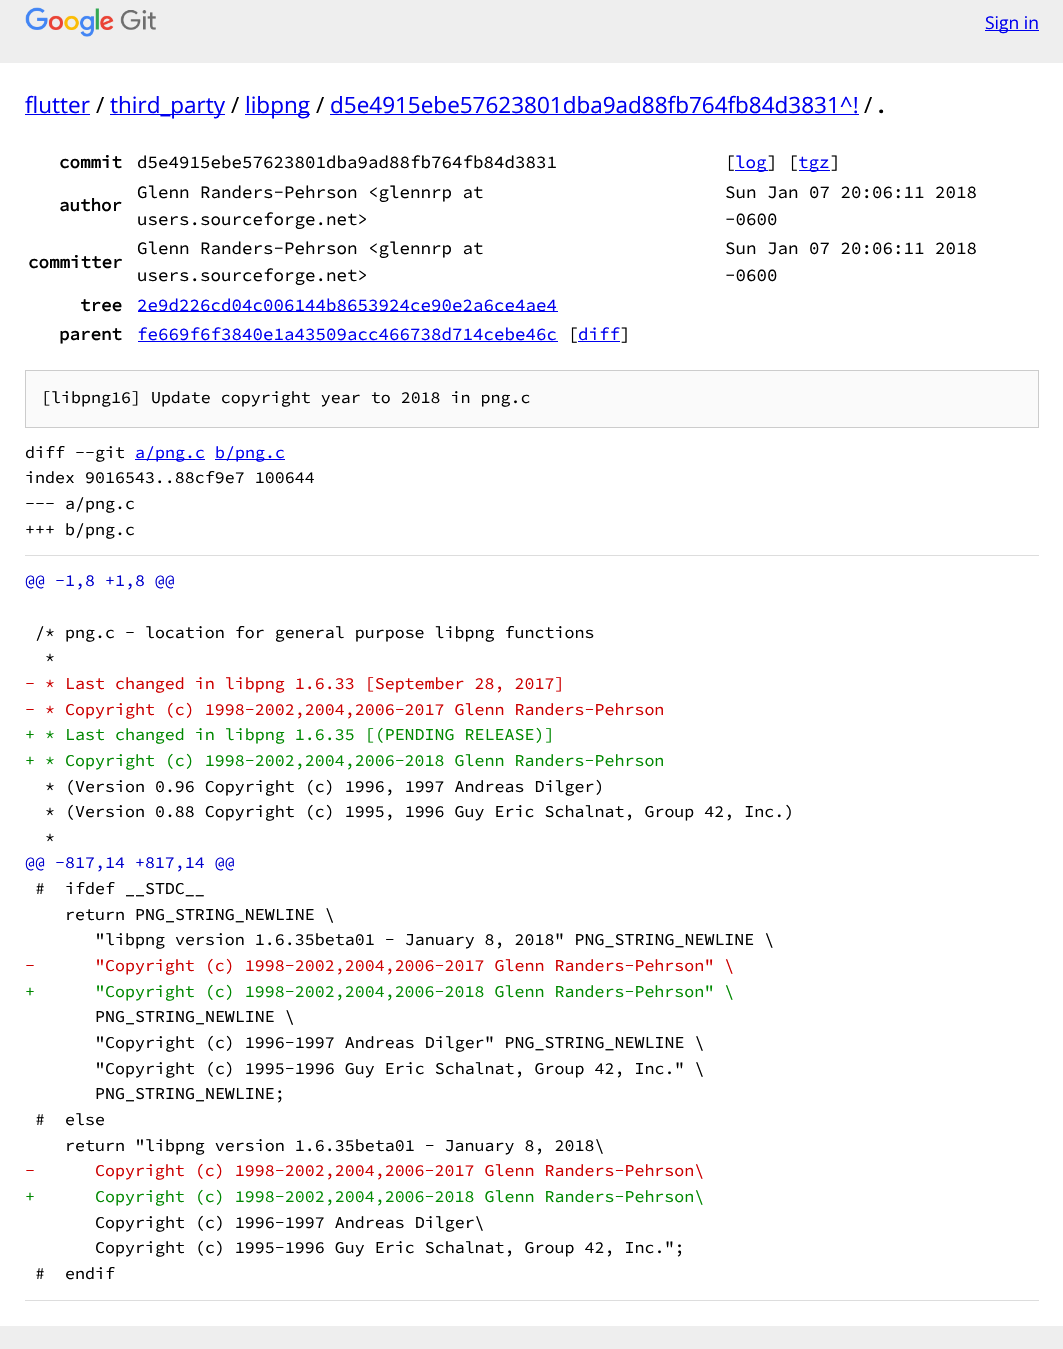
void draw(SkCanvas* canvas) {
	SkPaint paint;
	paint.setAntiAlias(true);
	canvas->clear(0xffffffff);
	paint.setColor(0xffeeeeee);
	canvas->drawRect(SkRect::MakeXYWH(0, 0, 1063, 63), paint);
	canvas->drawImageRect(SkImages::DeferredFromEncodedData(SkData::MakeFromFileName("img1.png")), SkRect::MakeXYWH(25, 7, 131, 30), SkSamplingOptions());
	paint.setColor(0xff0000ee);
	canvas->drawRect(SkRect::MakeXYWH(985, 30, 54, 1), paint);
	SkFont f1(fontMgr->matchFamilyStyle("Open Sans", SkFontStyle::Normal()), 17.5);
	f1.setSubpixel(true);
	canvas->drawString("Sign in", 985, 29, f1, paint);
	SkFont f2(fontMgr->matchFamilyStyle("Open Sans", SkFontStyle::Normal()), 22.5);
	f2.setSubpixel(true);
	canvas->drawString("flutter", 25, 113, f2, paint);
	canvas->drawRect(SkRect::MakeXYWH(25, 114, 65, 1), paint);
	paint.setColor(0xff000000);
	canvas->drawString("/", 96, 113, f2, paint);
	paint.setColor(0xff0000ee);
	canvas->drawRect(SkRect::MakeXYWH(110, 114, 115, 1), paint);
	canvas->drawString("third_party", 110, 113, f2, paint);
	paint.setColor(0xff000000);
	canvas->drawString("/", 231, 113, f2, paint);
	paint.setColor(0xff0000ee);
	canvas->drawRect(SkRect::MakeXYWH(245, 114, 65, 1), paint);
	canvas->drawString("libpng", 245, 113, f2, paint);
	paint.setColor(0xff000000);
	canvas->drawString("/", 316, 113, f2, paint);
	paint.setColor(0xff0000ee);
	canvas->drawString("d5e4915ebe57623801dba9ad88fb764fb84d3831^!", 330, 113, f2, paint);
	canvas->drawRect(SkRect::MakeXYWH(330, 114, 529, 1), paint);
	paint.setColor(0xff000000);
	canvas->drawString("/", 864, 113, f2, paint);
	SkFont f3(fontMgr->matchFamilyStyle("Open Sans", SkFontStyle::Bold()), 22.5);
	f3.setSubpixel(true);
	canvas->drawString(".", 878, 113, f3, paint);
	SkFont f4(fontMgr->matchFamilyStyle("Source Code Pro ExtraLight", SkFontStyle::Bold()), 17.5);
	f4.setSubpixel(true);
	canvas->drawString("commit", 59, 168, f4, paint);
	SkFont f5(fontMgr->matchFamilyStyle("Source Code Pro ExtraLight", SkFontStyle(200, SkFontStyle::kNormal_Width, SkFontStyle::kUpright_Slant)), 17.5);
	f5.setSubpixel(true);
	canvas->drawString("d5e4915ebe57623801dba9ad88fb764fb84d3831", 137, 168, f5, paint);
	canvas->drawString("[", 725, 168, f5, paint);
	paint.setColor(0xff0000ee);
	canvas->drawRect(SkRect::MakeXYWH(735, 170, 33, 1), paint);
	canvas->drawString("log", 735, 168, f5, paint);
	paint.setColor(0xff000000);
	canvas->drawString("] [", 767, 168, f5, paint);
	paint.setColor(0xff0000ee);
	canvas->drawRect(SkRect::MakeXYWH(799, 170, 31, 1), paint);
	canvas->drawString("tgz", 798, 168, f5, paint);
	paint.setColor(0xff000000);
	canvas->drawString("]", 830, 168, f5, paint);
	canvas->drawString("author", 59, 211, f4, paint);
	canvas->drawString("Glenn Randers-Pehrson <glennrp at", 137, 198, f5, paint);
	canvas->drawString("users.sourceforge.net>", 137, 225, f5, paint);
	canvas->drawString("Sun Jan 07 20:06:11 2018", 725, 198, f5, paint);
	canvas->drawString("-0600", 725, 225, f5, paint);
	canvas->drawString("committer", 28, 268, f4, paint);
	canvas->drawString("Glenn Randers-Pehrson <glennrp at", 137, 254, f5, paint);
	canvas->drawString("users.sourceforge.net>", 137, 281, f5, paint);
	canvas->drawString("Sun Jan 07 20:06:11 2018", 725, 254, f5, paint);
	canvas->drawString("-0600", 725, 281, f5, paint);
	canvas->drawString("tree", 80, 311, f4, paint);
	paint.setColor(0xff0000ee);
	canvas->drawRect(SkRect::MakeXYWH(138, 311, 420, 1), paint);
	canvas->drawString("2e9d226cd04c006144b8653924ce90e2a6ce4ae4", 137, 311, f5, paint);
	paint.setColor(0xff000000);
	canvas->drawString("parent", 59, 340, f4, paint);
	paint.setColor(0xff0000ee);
	canvas->drawString("fe669f6f3840e1a43509acc466738d714cebe46c", 137, 340, f5, paint);
	canvas->drawRect(SkRect::MakeXYWH(138, 341, 420, 1), paint);
	paint.setColor(0xff000000);
	canvas->drawString("[", 568, 340, f5, paint);
	paint.setColor(0xff0000ee);
	canvas->drawRect(SkRect::MakeXYWH(578, 341, 42, 1), paint);
	canvas->drawString("diff", 578, 340, f5, paint);
	paint.setColor(0xff000000);
	canvas->drawString("]", 620, 340, f5, paint);
	paint.setColor(0xfffafafa);
	canvas->drawRect(SkRect::MakeXYWH(25.5, 370.5, 1013, 57), paint);
	paint.setStroke(true);
	paint.setStrokeWidth(1);
	paint.setColor(0xffcccccc);
	canvas->drawRect(SkRect::MakeXYWH(25.5, 370.5, 1013, 57), paint);
	SkFont f6(fontMgr->matchFamilyStyle("Source Code Pro ExtraLight", SkFontStyle(200, SkFontStyle::kNormal_Width, SkFontStyle::kUpright_Slant)), 16.65);
	f6.setSubpixel(true);
	paint.setStroke(false);
	paint.setColor(0xff000000);
	canvas->drawString("[libpng16] Update copyright year to 2018 in png.c", 41, 403, f6, paint);
	canvas->drawString("diff --git", 25, 458, f6, paint);
	paint.setColor(0xff0000ee);
	canvas->drawRect(SkRect::MakeXYWH(135, 459, 70, 1), paint);
	canvas->drawString("a/png.c", 135, 458, f6, paint);
	canvas->drawRect(SkRect::MakeXYWH(215, 459, 70, 1), paint);
	canvas->drawString("b/png.c", 215, 458, f6, paint);
	paint.setColor(0xff000000);
	canvas->drawString("index 9016543..88cf9e7 100644", 25, 483, f6, paint);
	canvas->drawString("--- a/png.c", 25, 509, f6, paint);
	canvas->drawString("+++ b/png.c", 25, 535, f6, paint);
	paint.setColor(0xffdddddd);
	canvas->drawRect(SkRect::MakeXYWH(25, 555, 1014, 1), paint);
	canvas->drawRect(SkRect::MakeXYWH(25, 1300, 1014, 1), paint);
	paint.setColor(0xff0000cc);
	canvas->drawString("@@ -1,8 +1,8 @@", 25, 586, f6, paint);
	paint.setColor(0xff000000);
	canvas->drawString("/* png.c - location for general purpose libpng functions", 35, 638, f6, paint);
	canvas->drawString("*", 45, 663, f6, paint);
	paint.setColor(0xffcc0000);
	canvas->drawString("- * Last changed in libpng 1.6.33 [September 28, 2017]", 25, 689, f6, paint);
	canvas->drawString("- * Copyright (c) 1998-2002,2004,2006-2017 Glenn Randers-Pehrson", 25, 715, f6, paint);
	paint.setColor(0xff008800);
	canvas->drawString("+ * Last changed in libpng 1.6.35 [(PENDING RELEASE)]", 25, 740, f6, paint);
	canvas->drawString("+ * Copyright (c) 1998-2002,2004,2006-2018 Glenn Randers-Pehrson", 25, 766, f6, paint);
	paint.setColor(0xff000000);
	canvas->drawString("* (Version 0.96 Copyright (c) 1996, 1997 Andreas Dilger)", 45, 792, f6, paint);
	canvas->drawString("* (Version 0.88 Copyright (c) 1995, 1996 Guy Eric Schalnat, Group 42, Inc.)", 45, 817, f6, paint);
	canvas->drawString("*", 45, 843, f6, paint);
	paint.setColor(0xff0000cc);
	canvas->drawString("@@ -817,14 +817,14 @@", 25, 868, f6, paint);
	paint.setColor(0xff000000);
	canvas->drawString("#  ifdef __STDC__", 35, 894, f6, paint);
	canvas->drawString("return PNG_STRING_NEWLINE \\", 65, 920, f6, paint);
	canvas->drawString("\"libpng version 1.6.35beta01 - January 8, 2018\" PNG_STRING_NEWLINE \\", 95, 945, f6, paint);
	paint.setColor(0xffcc0000);
	canvas->drawString("-      \"Copyright (c) 1998-2002,2004,2006-2017 Glenn Randers-Pehrson\" \\", 25, 971, f6, paint);
	paint.setColor(0xff008800);
	canvas->drawString("+      \"Copyright (c) 1998-2002,2004,2006-2018 Glenn Randers-Pehrson\" \\", 25, 997, f6, paint);
	paint.setColor(0xff000000);
	canvas->drawString("PNG_STRING_NEWLINE \\", 95, 1022, f6, paint);
	canvas->drawString("\"Copyright (c) 1996-1997 Andreas Dilger\" PNG_STRING_NEWLINE \\", 95, 1048, f6, paint);
	canvas->drawString("\"Copyright (c) 1995-1996 Guy Eric Schalnat, Group 42, Inc.\" \\", 95, 1074, f6, paint);
	canvas->drawString("PNG_STRING_NEWLINE;", 95, 1099, f6, paint);
	canvas->drawString("#  else", 35, 1125, f6, paint);
	canvas->drawString("return \"libpng version 1.6.35beta01 - January 8, 2018\\", 65, 1151, f6, paint);
	paint.setColor(0xffcc0000);
	canvas->drawString("-      Copyright (c) 1998-2002,2004,2006-2017 Glenn Randers-Pehrson\\", 25, 1176, f6, paint);
	paint.setColor(0xff008800);
	canvas->drawString("+      Copyright (c) 1998-2002,2004,2006-2018 Glenn Randers-Pehrson\\", 25, 1202, f6, paint);
	paint.setColor(0xff000000);
	canvas->drawString("Copyright (c) 1996-1997 Andreas Dilger\\", 95, 1228, f6, paint);
	canvas->drawString("Copyright (c) 1995-1996 Guy Eric Schalnat, Group 42, Inc.\";", 95, 1253, f6, paint);
	canvas->drawString("#  endif", 35, 1279, f6, paint);
	paint.setColor(0xffeeeeee);
	canvas->drawRect(SkRect::MakeXYWH(0, 1326, 1063, 23), paint);
}
